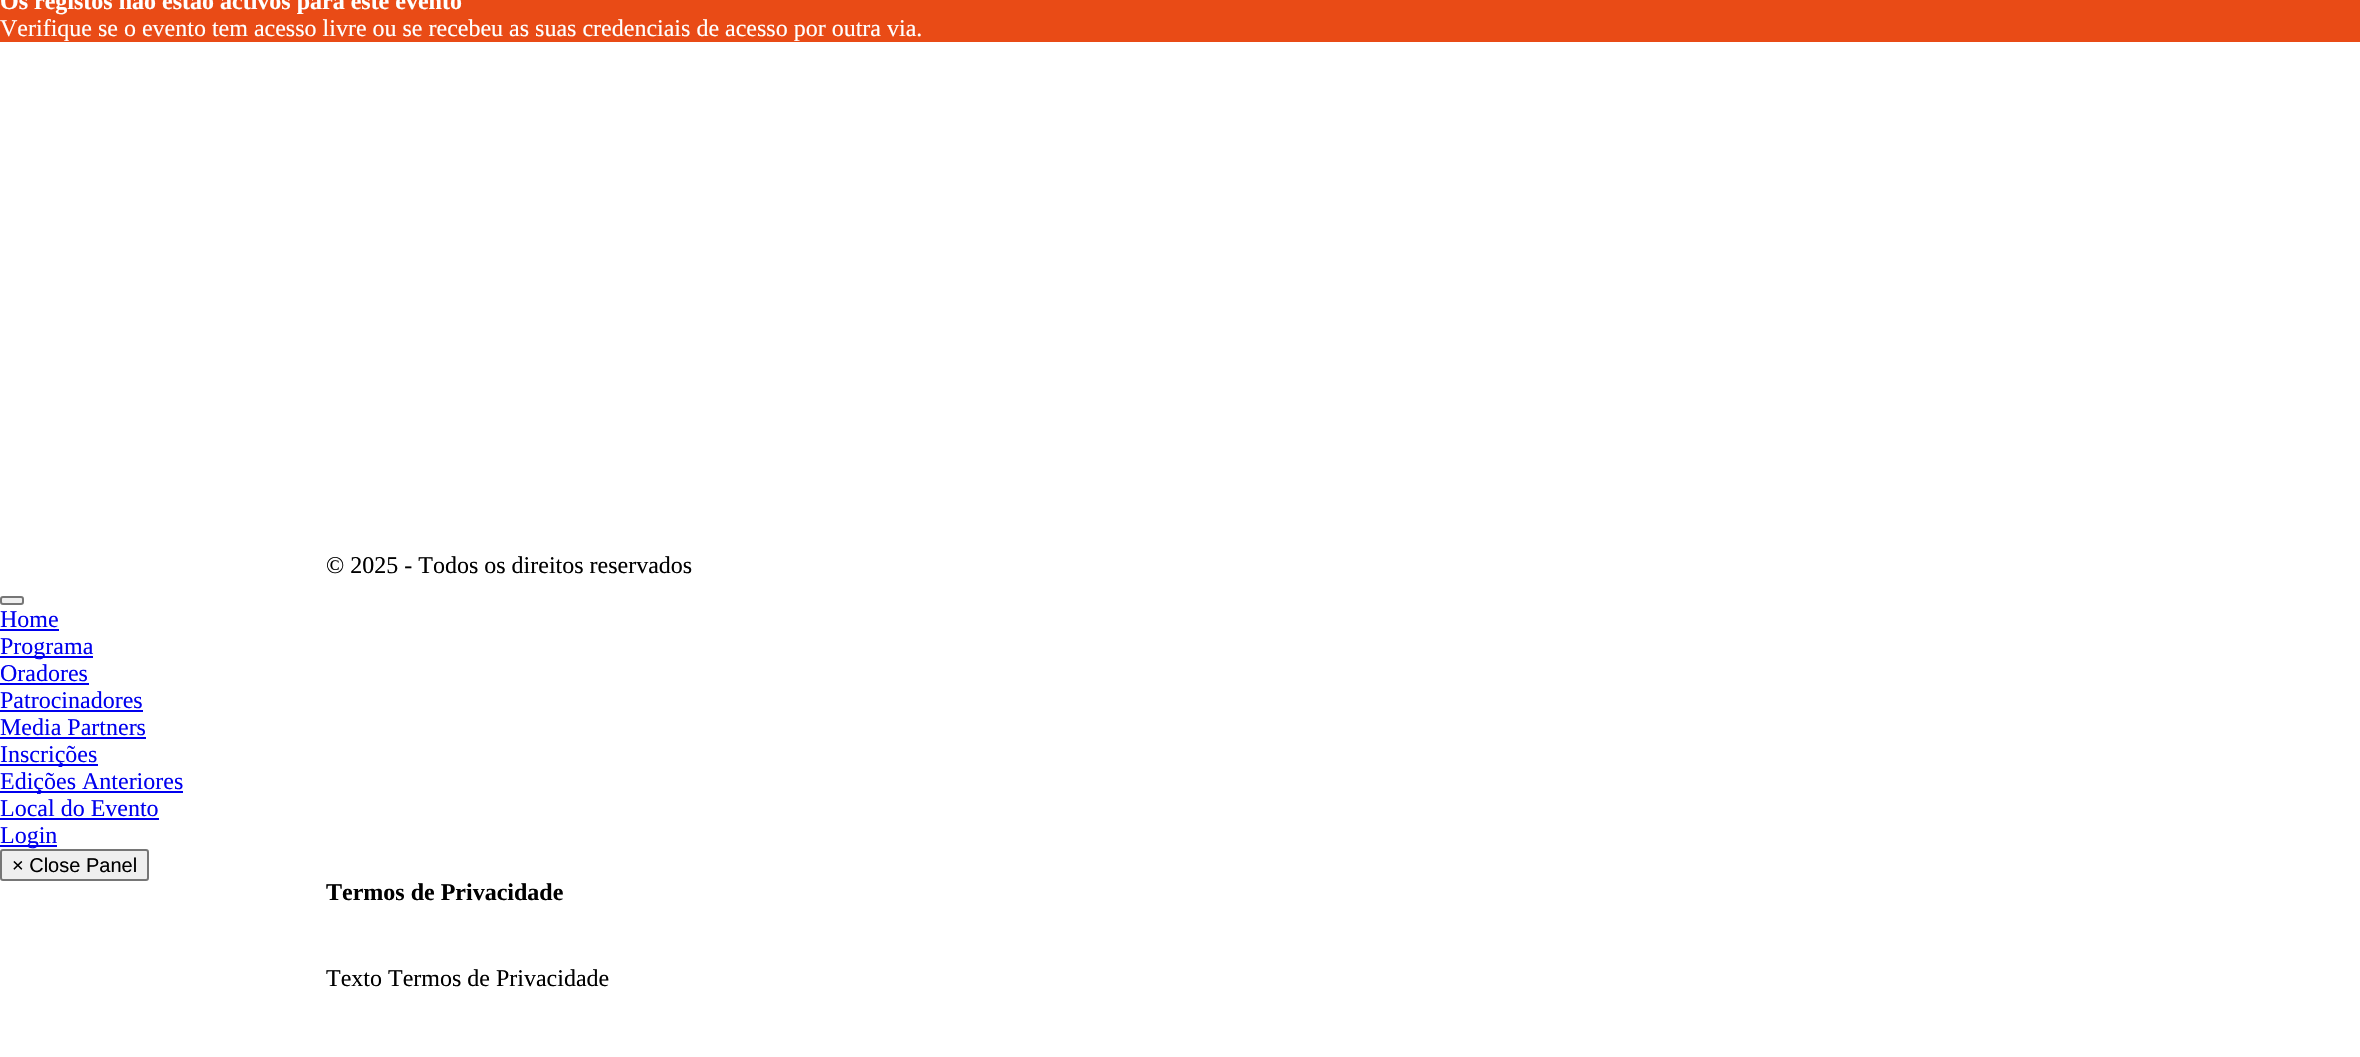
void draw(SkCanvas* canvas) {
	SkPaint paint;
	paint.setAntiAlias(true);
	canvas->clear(0xffffffff);
	paint.setColor(0xffe94b16);
	canvas->drawRect(SkRect::MakeXYWH(0, 0, 2360, 42), paint);
	SkFont f1(fontMgr->matchFamilyStyle("Liberation Serif", SkFontStyle::Bold()), 24);
	f1.setSubpixel(true);
	paint.setColor(0xffffffff);
	canvas->drawString("Os registos não estão activos para este evento", 0, 9, f1, paint);
	SkFont f2(fontMgr->matchFamilyStyle("Liberation Serif", SkFontStyle::Normal()), 24);
	f2.setSubpixel(true);
	canvas->drawString("Verifique se o evento tem acesso livre ou se recebeu as suas credenciais de acesso por outra via.", 0, 36, f2, paint);
	paint.setColor(0xff000000);
	canvas->drawString("© 2025 - Todos os direitos reservados", 326, 573, f2, paint);
	paint.setColor(0xffefefef);
	canvas->drawRoundRect(SkRect::MakeXYWH(1, 597, 22, 7), 2, 2, paint);
	paint.setStroke(true);
	paint.setStrokeWidth(2);
	paint.setColor(0xff767676);
	canvas->drawRoundRect(SkRect::MakeXYWH(1, 597, 22, 7), 2, 2, paint);
	paint.setStroke(false);
	paint.setColor(0xff0000ee);
	canvas->drawString("Home", 0, 627, f2, paint);
	canvas->drawRect(SkRect::MakeXYWH(0, 629, 59, 2), paint);
	canvas->drawRect(SkRect::MakeXYWH(0, 656, 93, 2), paint);
	canvas->drawString("Programa", 0, 654, f2, paint);
	canvas->drawString("Oradores", 0, 681, f2, paint);
	canvas->drawRect(SkRect::MakeXYWH(0, 683, 89, 2), paint);
	canvas->drawString("Patrocinadores", 0, 708, f2, paint);
	canvas->drawRect(SkRect::MakeXYWH(0, 710, 143, 2), paint);
	canvas->drawString("Media Partners", 0, 735, f2, paint);
	canvas->drawRect(SkRect::MakeXYWH(0, 737, 146, 2), paint);
	canvas->drawRect(SkRect::MakeXYWH(0, 764, 98, 2), paint);
	canvas->drawString("Inscrições", 0, 762, f2, paint);
	canvas->drawRect(SkRect::MakeXYWH(0, 791, 183, 2), paint);
	canvas->drawString("Edições Anteriores", 0, 789, f2, paint);
	canvas->drawString("Local do Evento", 0, 816, f2, paint);
	canvas->drawRect(SkRect::MakeXYWH(0, 818, 159, 2), paint);
	canvas->drawRect(SkRect::MakeXYWH(0, 845, 57, 2), paint);
	canvas->drawString("Login", 0, 843, f2, paint);
	paint.setColor(0xffefefef);
	canvas->drawRoundRect(SkRect::MakeXYWH(1, 850, 147, 30), 2, 2, paint);
	paint.setStroke(true);
	paint.setColor(0xff767676);
	canvas->drawRoundRect(SkRect::MakeXYWH(1, 850, 147, 30), 2, 2, paint);
	SkFont f3(fontMgr->matchFamilyStyle("Liberation Sans", SkFontStyle::Normal()), 20);
	f3.setSubpixel(true);
	paint.setStroke(false);
	paint.setColor(0xff000000);
	canvas->drawString("× Close Panel", 12, 872, f3, paint);
	canvas->drawString("Termos de Privacidade", 326, 900, f1, paint);
	canvas->drawString("Texto Termos de Privacidade", 326, 986, f2, paint);
}
